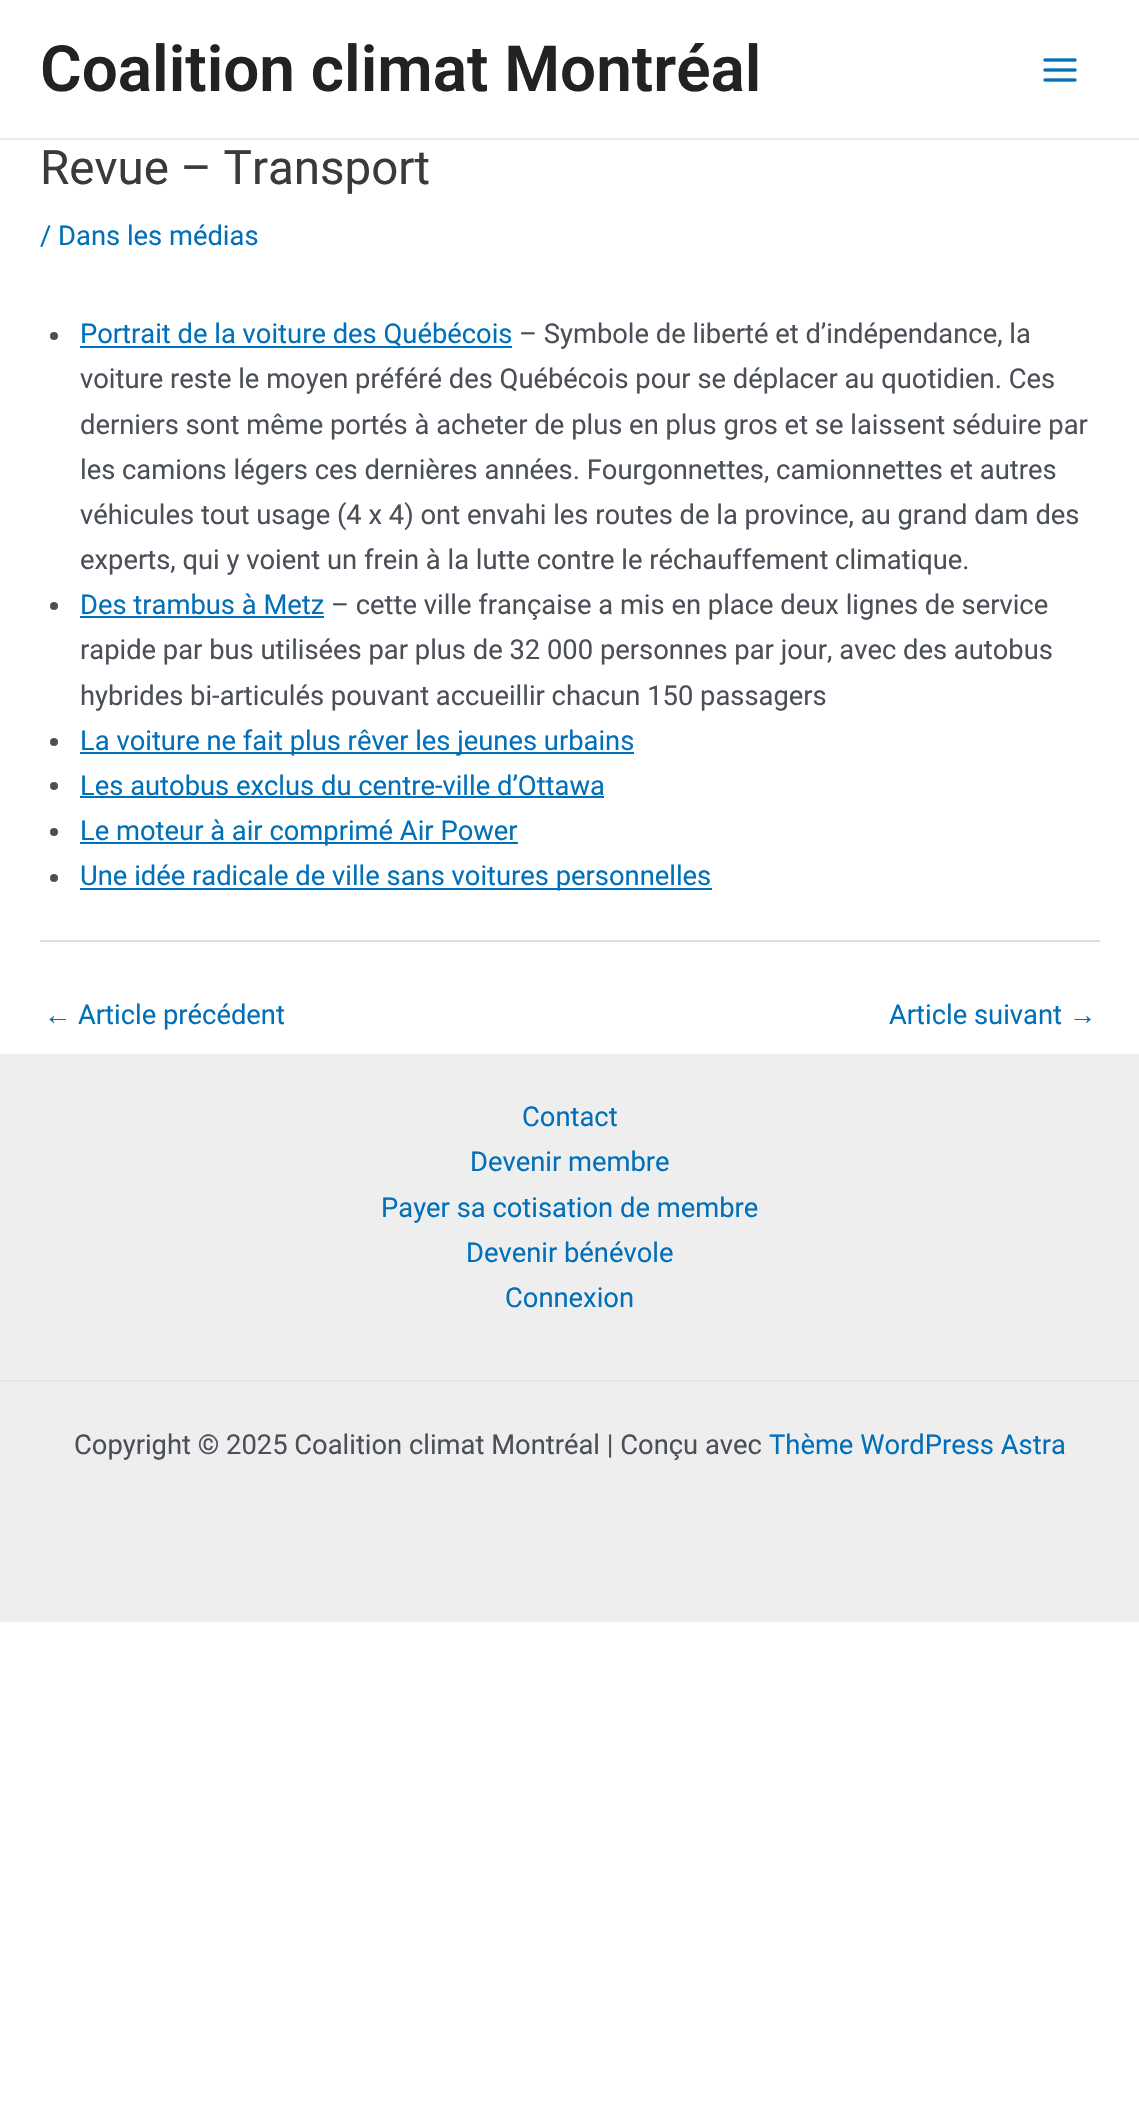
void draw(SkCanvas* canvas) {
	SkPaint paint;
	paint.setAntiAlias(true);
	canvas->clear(0xffffffff);
	paint.setColor(0xffeaeaea);
	canvas->drawRect(SkRect::MakeXYWH(0, 138, 1139, 2), paint);
	SkFont f1(fontMgr->matchFamilyStyle("Roboto", SkFontStyle(600, SkFontStyle::kNormal_Width, SkFontStyle::kUpright_Slant)), 63.8);
	f1.setSubpixel(true);
	paint.setColor(0xff222222);
	canvas->drawString("Coalition climat Montréal", 40, 91, f1, paint);
	canvas->drawImageRect(SkImages::DeferredFromEncodedData(SkData::MakeFromFileName("img1.png")), SkRect::MakeXYWH(1043, 58, 34, 24), SkSamplingOptions());
	SkFont f2(fontMgr->matchFamilyStyle("Roboto", SkFontStyle::Normal()), 47.5);
	f2.setSubpixel(true);
	paint.setColor(0xff3a3a3a);
	canvas->drawString("Revue – Transport", 40, 184, f2, paint);
	SkFont f3(fontMgr->matchFamilyStyle("Roboto", SkFontStyle::Normal()), 27.35);
	f3.setSubpixel(true);
	paint.setColor(0xff0170b9);
	canvas->drawString("/ Dans les médias", 40, 245, f3, paint);
	paint.setColor(0xff4b4f58);
	canvas->drawCircle(54, 336, 4, paint);
	paint.setColor(0xff0170b9);
	canvas->drawRect(SkRect::MakeXYWH(80, 346, 432, 2), paint);
	canvas->drawString("Portrait de la voiture des Québécois", 80, 343, f3, paint);
	paint.setColor(0xff4b4f58);
	canvas->drawString("– Symbole de liberté et d’indépendance, la", 519, 343, f3, paint);
	canvas->drawString("voiture reste le moyen préféré des Québécois pour se déplacer au quotidien. Ces", 80, 388, f3, paint);
	canvas->drawString("derniers sont même portés à acheter de plus en plus gros et se laissent séduire par", 80, 434, f3, paint);
	canvas->drawString("les camions légers ces dernières années. Fourgonnettes, camionnettes et autres", 80, 479, f3, paint);
	canvas->drawString("véhicules tout usage (4 x 4) ont envahi les routes de la province, au grand dam des", 80, 524, f3, paint);
	canvas->drawString("experts, qui y voient un frein à la lutte contre le réchauffement climatique.", 80, 569, f3, paint);
	canvas->drawCircle(54, 606, 4, paint);
	paint.setColor(0xff0170b9);
	canvas->drawString("Des trambus à Metz", 80, 614, f3, paint);
	canvas->drawRect(SkRect::MakeXYWH(80, 616, 244, 2), paint);
	paint.setColor(0xff4b4f58);
	canvas->drawString("– cette ville française a mis en place deux lignes de service", 331, 614, f3, paint);
	canvas->drawString("rapide par bus utilisées par plus de 32 000 personnes par jour, avec des autobus", 80, 659, f3, paint);
	canvas->drawString("hybrides bi-articulés pouvant accueillir chacun 150 passagers", 80, 705, f3, paint);
	canvas->drawCircle(54, 742, 4, paint);
	paint.setColor(0xff0170b9);
	canvas->drawRect(SkRect::MakeXYWH(80, 752, 554, 2), paint);
	canvas->drawString("La voiture ne fait plus rêver les jeunes urbains", 80, 750, f3, paint);
	paint.setColor(0xff4b4f58);
	canvas->drawCircle(54, 786, 4, paint);
	paint.setColor(0xff0170b9);
	canvas->drawString("Les autobus exclus du centre-ville d’Ottawa", 80, 795, f3, paint);
	canvas->drawRect(SkRect::MakeXYWH(80, 796, 524, 2), paint);
	paint.setColor(0xff4b4f58);
	canvas->drawCircle(54, 832, 4, paint);
	paint.setColor(0xff0170b9);
	canvas->drawRect(SkRect::MakeXYWH(80, 842, 438, 2), paint);
	canvas->drawString("Le moteur à air comprimé Air Power", 80, 840, f3, paint);
	paint.setColor(0xff4b4f58);
	canvas->drawCircle(54, 878, 4, paint);
	paint.setColor(0xff0170b9);
	canvas->drawRect(SkRect::MakeXYWH(80, 888, 632, 2), paint);
	canvas->drawString("Une idée radicale de ville sans voitures personnelles", 80, 885, f3, paint);
	paint.setColor(0xffdddddd);
	canvas->drawRect(SkRect::MakeXYWH(40, 940, 1060, 2), paint);
	SkFont f4(fontMgr->matchFamilyStyle("Liberation Sans", SkFontStyle::Normal()), 27.35);
	f4.setSubpixel(true);
	paint.setColor(0xff0170b9);
	canvas->drawString("←", 44, 1024, f4, paint);
	canvas->drawString("Article précédent", 78, 1024, f3, paint);
	canvas->drawString("Article suivant", 889, 1024, f3, paint);
	canvas->drawString("→", 1069, 1024, f4, paint);
	paint.setColor(0xffeeeeee);
	canvas->drawRect(SkRect::MakeXYWH(0, 1054, 1139, 326), paint);
	paint.setColor(0xff0170b9);
	canvas->drawString("Contact", 522, 1126, f3, paint);
	canvas->drawString("Devenir membre", 470, 1171, f3, paint);
	canvas->drawString("Payer sa cotisation de membre", 381, 1217, f3, paint);
	canvas->drawString("Devenir bénévole", 466, 1262, f3, paint);
	canvas->drawString("Connexion", 505, 1307, f3, paint);
	paint.setColor(0xffeeeeee);
	canvas->drawRect(SkRect::MakeXYWH(0, 1382, 1139, 240), paint);
	paint.setColor(0xffe5e5e5);
	canvas->drawRect(SkRect::MakeXYWH(0, 1380, 1139, 2), paint);
	paint.setColor(0xff4b4f58);
	canvas->drawString("Copyright © 2025 Coalition climat Montréal | Conçu avec", 74, 1454, f3, paint);
	paint.setColor(0xff0170b9);
	canvas->drawString("Thème WordPress Astra", 769, 1454, f3, paint);
}
